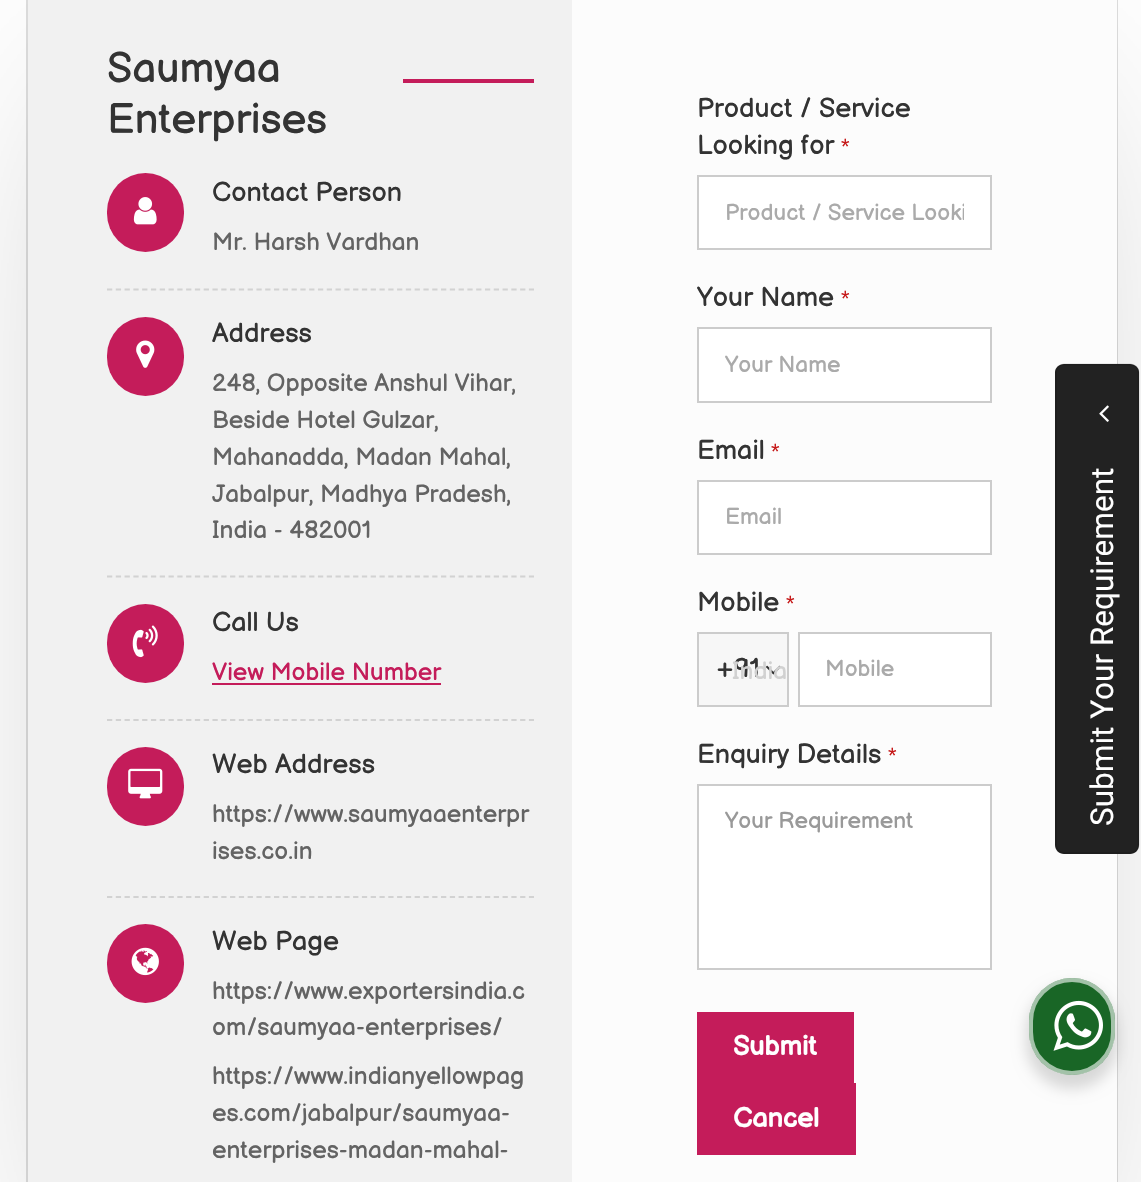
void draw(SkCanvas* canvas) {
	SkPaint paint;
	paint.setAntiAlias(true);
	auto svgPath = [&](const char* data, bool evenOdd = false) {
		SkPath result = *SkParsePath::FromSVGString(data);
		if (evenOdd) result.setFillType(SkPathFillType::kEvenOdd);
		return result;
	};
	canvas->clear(0xffffffff);
	paint.setColor(0x3d000000);
	paint.setMaskFilter(SkMaskFilter::MakeBlur(kNormal_SkBlurStyle, 105));
	canvas->drawRect(SkRect::MakeXYWH(96, 103, 952, 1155), paint);
	paint.setMaskFilter(nullptr);
	paint.setStroke(true);
	paint.setStrokeWidth(2);
	paint.setColor(0x21000000);
	canvas->drawRect(SkRect::MakeXYWH(27, -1, 1090, 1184), paint);
	paint.setStroke(false);
	paint.setColor(0xfff1f1f1);
	canvas->drawRect(SkRect::MakeXYWH(28, 0, 544, 1182), paint);
	SkFont f1(fontMgr->matchFamilyStyle("Balsamiq Sans", SkFontStyle::Normal()), 42);
	f1.setSubpixel(true);
	paint.setColor(0xff333333);
	canvas->drawString("Saumyaa", 107, 82, f1, paint);
	canvas->drawString("Enterprises", 107, 133, f1, paint);
	paint.setColor(0xffc41c5a);
	canvas->drawRect(SkRect::MakeXYWH(403, 79, 131, 4), paint);
	canvas->drawRoundRect(SkRect::MakeXYWH(107, 173, 77, 79), 38.5, 38.5, paint);
	canvas->drawImageRect(SkImages::DeferredFromEncodedData(SkData::MakeFromFileName("img1.png")), SkRect::MakeXYWH(133, 197, 24, 28), SkSamplingOptions());
	SkFont f2(fontMgr->matchFamilyStyle("Balsamiq Sans", SkFontStyle::Normal()), 27);
	f2.setSubpixel(true);
	paint.setColor(0xff333333);
	canvas->drawString("Contact Person", 212, 201, f2, paint);
	SkFont f3(fontMgr->matchFamilyStyle("Balsamiq Sans", SkFontStyle::Normal()), 24.5);
	f3.setSubpixel(true);
	paint.setColor(0xff636363);
	canvas->drawString("Mr. Harsh Vardhan", 212, 250, f3, paint);
	paint.setStroke(true);
	paint.setStrokeWidth(1.8);
	paint.setColor(0xffd2d2d2);
	paint.setPathEffect(SkDashPathEffect::Make({{5.25f, 3.54f}}, 0));
	canvas->drawPath(svgPath("M107 289.5H534"), paint);
	paint.setPathEffect(nullptr);
	paint.setStroke(false);
	paint.setColor(0xffc41c5a);
	canvas->drawRoundRect(SkRect::MakeXYWH(107, 317, 77, 79), 38.5, 38.5, paint);
	canvas->drawImageRect(SkImages::DeferredFromEncodedData(SkData::MakeFromFileName("img2.png")), SkRect::MakeXYWH(136, 340, 19, 28), SkSamplingOptions());
	paint.setColor(0xff333333);
	canvas->drawString("Address", 212, 342, f2, paint);
	paint.setColor(0xff636363);
	canvas->drawString("248, Opposite Anshul Vihar,", 212, 391, f3, paint);
	canvas->drawString("Beside Hotel Gulzar,", 212, 428, f3, paint);
	canvas->drawString("Mahanadda, Madan Mahal,", 212, 465, f3, paint);
	canvas->drawString("Jabalpur, Madhya Pradesh,", 212, 502, f3, paint);
	canvas->drawString("India - 482001", 212, 538, f3, paint);
	paint.setStroke(true);
	paint.setColor(0xffd2d2d2);
	paint.setPathEffect(SkDashPathEffect::Make({{5.25f, 3.54f}}, 0));
	canvas->drawPath(svgPath("M107 576.5H534"), paint);
	paint.setPathEffect(nullptr);
	paint.setStroke(false);
	paint.setColor(0xffc41c5a);
	canvas->drawRoundRect(SkRect::MakeXYWH(107, 604, 77, 79), 38.5, 38.5, paint);
	canvas->drawImageRect(SkImages::DeferredFromEncodedData(SkData::MakeFromFileName("img3.png")), SkRect::MakeXYWH(132, 625, 26, 33), SkSamplingOptions());
	paint.setColor(0xff333333);
	canvas->drawString("Call Us", 212, 631, f2, paint);
	paint.setColor(0xffc41c5a);
	canvas->drawString("View Mobile Number", 212, 680, f3, paint);
	canvas->drawRect(SkRect::MakeXYWH(212, 683, 229, 2), paint);
	paint.setStroke(true);
	paint.setColor(0xffd2d2d2);
	paint.setPathEffect(SkDashPathEffect::Make({{5.25f, 3.54f}}, 0));
	canvas->drawPath(svgPath("M107 720H534"), paint);
	paint.setPathEffect(nullptr);
	paint.setStroke(false);
	paint.setColor(0xffc41c5a);
	canvas->drawRoundRect(SkRect::MakeXYWH(107, 747, 77, 79), 38.5, 38.5, paint);
	canvas->drawImageRect(SkImages::DeferredFromEncodedData(SkData::MakeFromFileName("img4.png")), SkRect::MakeXYWH(128, 768, 35, 31), SkSamplingOptions());
	paint.setColor(0xff333333);
	canvas->drawString("Web Address", 212, 773, f2, paint);
	paint.setColor(0xff636363);
	canvas->drawString("https://www.saumyaaenterpr", 212, 822, f3, paint);
	canvas->drawString("ises.co.in", 212, 859, f3, paint);
	paint.setStroke(true);
	paint.setColor(0xffd2d2d2);
	paint.setPathEffect(SkDashPathEffect::Make({{5.25f, 3.54f}}, 0));
	canvas->drawPath(svgPath("M107 897H534"), paint);
	paint.setPathEffect(nullptr);
	paint.setStroke(false);
	paint.setColor(0xffc41c5a);
	canvas->drawRoundRect(SkRect::MakeXYWH(107, 924, 77, 79), 38.5, 38.5, paint);
	canvas->drawImageRect(SkImages::DeferredFromEncodedData(SkData::MakeFromFileName("img5.png")), SkRect::MakeXYWH(131, 947, 28, 29), SkSamplingOptions());
	paint.setColor(0xff333333);
	canvas->drawString("Web Page", 212, 950, f2, paint);
	paint.setColor(0xff636363);
	canvas->drawString("https://www.exportersindia.c", 212, 999, f3, paint);
	canvas->drawString("om/saumyaa-enterprises/", 212, 1035, f3, paint);
	canvas->drawString("https://www.indianyellowpag", 212, 1084, f3, paint);
	canvas->drawString("es.com/jabalpur/saumyaa-", 212, 1121, f3, paint);
	canvas->drawString("enterprises-madan-mahal-", 212, 1158, f3, paint);
	paint.setColor(0xfffcfcfc);
	canvas->drawRect(SkRect::MakeXYWH(572, 0, 545, 1182), paint);
	paint.setColor(0xff333333);
	canvas->drawString("Product / Service", 697, 117, f2, paint);
	canvas->drawString("Looking for", 697, 154, f2, paint);
	SkFont f4(fontMgr->matchFamilyStyle("Liberation Sans", SkFontStyle::Normal()), 22);
	f4.setSubpixel(true);
	paint.setColor(0xffc61818);
	canvas->drawString("*", 841, 154, f4, paint);
	paint.setColor(0xffffffff);
	canvas->drawRect(SkRect::MakeXYWH(698, 176, 293, 73), paint);
	paint.setStroke(true);
	paint.setStrokeWidth(2);
	paint.setColor(0xffcccccc);
	canvas->drawRect(SkRect::MakeXYWH(698, 176, 293, 73), paint);
	canvas->save();
	canvas->clipRect(SkRect::MakeXYWH(725, 200, 239, 28));
	SkFont f5(fontMgr->matchFamilyStyle("Balsamiq Sans", SkFontStyle::Normal()), 22.75);
	f5.setSubpixel(true);
	paint.setStroke(false);
	paint.setColor(0xffaaaaaa);
	canvas->drawString("Product / Service Looki", 725, 220, f5, paint);
	canvas->restore();
	paint.setColor(0xff333333);
	canvas->drawString("Your Name", 697, 306, f2, paint);
	paint.setColor(0xffc61818);
	canvas->drawString("*", 841, 306, f4, paint);
	paint.setColor(0xffffffff);
	canvas->drawRect(SkRect::MakeXYWH(698, 328, 293, 74), paint);
	paint.setStroke(true);
	paint.setColor(0xffcccccc);
	canvas->drawRect(SkRect::MakeXYWH(698, 328, 293, 74), paint);
	paint.setStroke(false);
	paint.setColor(0xffaaaaaa);
	canvas->drawString("Your Name", 725, 372, f5, paint);
	paint.setColor(0xff333333);
	canvas->drawString("Email", 697, 459, f2, paint);
	paint.setColor(0xffc61818);
	canvas->drawString("*", 771, 459, f4, paint);
	paint.setColor(0xffffffff);
	canvas->drawRect(SkRect::MakeXYWH(698, 481, 293, 73), paint);
	paint.setStroke(true);
	paint.setColor(0xffcccccc);
	canvas->drawRect(SkRect::MakeXYWH(698, 481, 293, 73), paint);
	paint.setStroke(false);
	paint.setColor(0xffaaaaaa);
	canvas->drawString("Email", 725, 524, f5, paint);
	paint.setColor(0xff333333);
	canvas->drawString("Mobile", 697, 611, f2, paint);
	paint.setColor(0xffc61818);
	canvas->drawString("*", 786, 611, f4, paint);
	paint.setColor(0xfff7f7f7);
	canvas->drawRect(SkRect::MakeXYWH(698, 633, 90, 73), paint);
	paint.setStroke(true);
	paint.setColor(0xffcccccc);
	canvas->drawRect(SkRect::MakeXYWH(698, 633, 90, 73), paint);
	paint.setStroke(false);
	paint.setColor(0xff333333);
	canvas->drawString("+91", 716, 677, f2, paint);
	canvas->drawImageRect(SkImages::DeferredFromEncodedData(SkData::MakeFromFileName("img6.png")), SkRect::MakeXYWH(766, 665, 15, 10), SkSamplingOptions());
	paint.setColor(0xffd1d1d1);
	canvas->drawString("India", 732, 679, f3, paint);
	paint.setColor(0xffffffff);
	canvas->drawRect(SkRect::MakeXYWH(799, 633, 192, 73), paint);
	paint.setStroke(true);
	paint.setColor(0xffcccccc);
	canvas->drawRect(SkRect::MakeXYWH(799, 633, 192, 73), paint);
	paint.setStroke(false);
	paint.setColor(0xffaaaaaa);
	canvas->drawString("Mobile", 825, 676, f5, paint);
	paint.setColor(0xff333333);
	canvas->drawString("Enquiry Details", 697, 763, f2, paint);
	paint.setColor(0xffc61818);
	canvas->drawString("*", 888, 763, f4, paint);
	paint.setColor(0xffffffff);
	canvas->drawRect(SkRect::MakeXYWH(698, 785, 293, 184), paint);
	paint.setStroke(true);
	paint.setColor(0xffcccccc);
	canvas->drawRect(SkRect::MakeXYWH(698, 785, 293, 184), paint);
	paint.setStroke(false);
	paint.setColor(0xff999999);
	canvas->drawString("Your Requirement", 725, 828, f5, paint);
	paint.setColor(0xffc41c5a);
	canvas->drawRect(SkRect::MakeXYWH(697, 1012, 157, 71), paint);
	SkFont f6(fontMgr->matchFamilyStyle("Balsamiq Sans", SkFontStyle::Bold()), 27);
	f6.setSubpixel(true);
	paint.setColor(0xffffffff);
	canvas->drawString("Submit", 733, 1055, f6, paint);
	paint.setColor(0xffc41c5a);
	canvas->drawRect(SkRect::MakeXYWH(697, 1083, 159, 72), paint);
	paint.setColor(0xffffffff);
	canvas->drawString("Cancel", 733, 1127, f6, paint);
	paint.setColor(0xff222222);
	canvas->drawPath(svgPath("M1055 845V372C1055 368 1059 364 1064 364H1130C1135 364 1139 368 1139 372V845C1139 850 1135 854 1130 854H1064C1059 854 1055 850 1055 845Z"), paint);
	paint.setStroke(true);
	paint.setStrokeWidth(1.8);
	paint.setColor(0x21000000);
	canvas->drawPath(svgPath("M1056 845V372.5C1056 368 1059.5 364.5 1064 364.5H1130.5C1135 364.5 1138.5 368 1138.5 372.5V845C1138.5 849.5 1135 853 1130.5 853H1064C1059.5 853 1056 849.5 1056 845Z"), paint);
	canvas->drawImageRect(SkImages::DeferredFromEncodedData(SkData::MakeFromFileName("img7.png")), SkRect::MakeXYWH(1099, 405, 10, 17), SkSamplingOptions());
	SkFont f7(fontMgr->matchFamilyStyle("Roboto", SkFontStyle::Normal()), 31.5);
	f7.setSubpixel(true);
	paint.setStroke(false);
	paint.setColor(0xffffffff);
	canvas->save();
	canvas->rotate(-90, 1113, 826);
	canvas->drawString("Submit Your Requirement", 1113, 826, f7, paint);
	canvas->restore();
	paint.setColor(0x24000000);
	paint.setMaskFilter(SkMaskFilter::MakeBlur(kNormal_SkBlurStyle, 7));
	canvas->drawRoundRect(SkRect::MakeXYWH(1026, 985, 92, 104), 46, 46, paint);
	paint.setMaskFilter(nullptr);
	paint.setColor(0xff196626);
	canvas->drawRoundRect(SkRect::MakeXYWH(1029, 978, 86, 97), 43, 43, paint);
	paint.setStroke(true);
	paint.setStrokeWidth(4);
	paint.setColor(0x99ffffff);
	canvas->drawRoundRect(SkRect::MakeXYWH(1031, 980, 82, 93), 41, 41, paint);
	canvas->drawImageRect(SkImages::DeferredFromEncodedData(SkData::MakeFromFileName("img8.png")), SkRect::MakeXYWH(1053, 1000, 50, 51), SkSamplingOptions());
}
